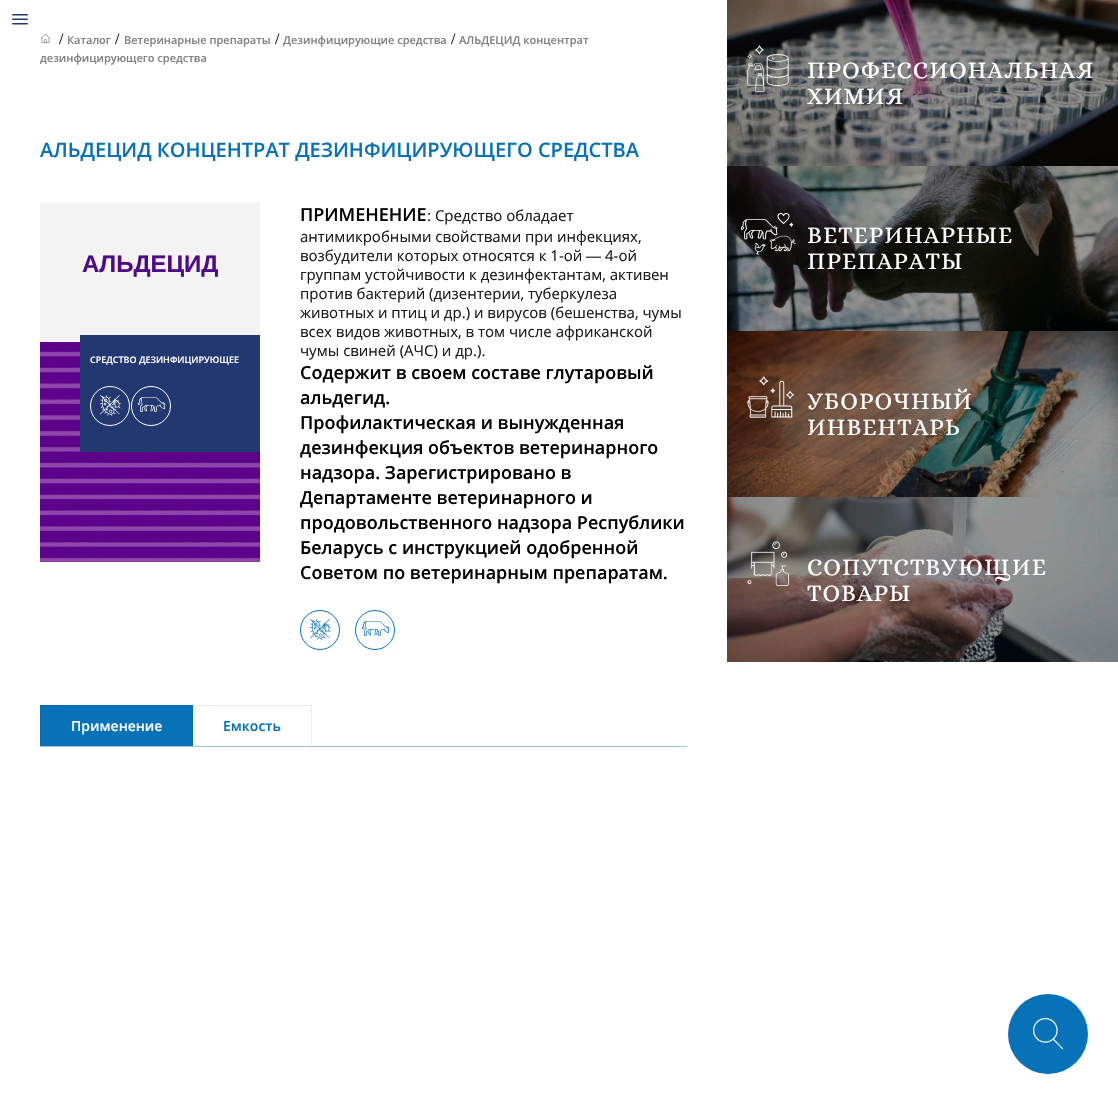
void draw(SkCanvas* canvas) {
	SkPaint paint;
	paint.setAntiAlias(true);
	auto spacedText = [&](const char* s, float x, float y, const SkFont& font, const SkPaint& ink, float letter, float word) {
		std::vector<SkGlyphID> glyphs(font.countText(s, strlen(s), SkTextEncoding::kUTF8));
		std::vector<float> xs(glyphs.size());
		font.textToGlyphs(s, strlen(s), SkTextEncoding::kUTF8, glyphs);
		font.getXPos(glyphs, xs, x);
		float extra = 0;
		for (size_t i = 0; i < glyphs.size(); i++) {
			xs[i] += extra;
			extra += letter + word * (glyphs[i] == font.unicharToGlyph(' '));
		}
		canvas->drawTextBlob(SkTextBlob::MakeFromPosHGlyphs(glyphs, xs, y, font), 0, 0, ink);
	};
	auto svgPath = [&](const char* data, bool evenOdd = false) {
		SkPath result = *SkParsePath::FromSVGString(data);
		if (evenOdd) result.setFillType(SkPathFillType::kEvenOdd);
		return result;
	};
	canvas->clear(0xffffffff);
	canvas->drawImageRect(SkImages::DeferredFromEncodedData(SkData::MakeFromFileName("img1.png")), SkRect::MakeXYWH(12, 14, 16, 11), SkSamplingOptions());
	canvas->drawImageRect(SkImages::DeferredFromEncodedData(SkData::MakeFromFileName("img2.png")), SkRect::MakeXYWH(41, 33, 9, 11), SkSamplingOptions());
	SkFont f1(fontMgr->matchFamilyStyle("Liberation Serif", SkFontStyle::Normal()), 16);
	f1.setSubpixel(true);
	paint.setColor(0xff000000);
	canvas->drawString("/", 59, 44, f1, paint);
	SkFont f2(fontMgr->matchFamilyStyle("Open Sans", SkFontStyle(600, SkFontStyle::kNormal_Width, SkFontStyle::kUpright_Slant)), 11);
	f2.setSubpixel(true);
	paint.setColor(0xff808080);
	canvas->drawString("Каталог", 67, 44, f2, paint);
	paint.setColor(0xff000000);
	canvas->drawString("/", 115, 44, f1, paint);
	paint.setColor(0xff808080);
	canvas->drawString("Ветеринарные препараты", 124, 44, f2, paint);
	paint.setColor(0xff000000);
	canvas->drawString("/", 275, 44, f1, paint);
	paint.setColor(0xff808080);
	canvas->drawString("Дезинфицирующие средства", 283, 44, f2, paint);
	paint.setColor(0xff000000);
	canvas->drawString("/", 451, 44, f1, paint);
	paint.setColor(0xff808080);
	canvas->drawString("АЛЬДЕЦИД концентрат", 459, 44, f2, paint);
	canvas->drawString("дезинфицирующего средства", 40, 62, f2, paint);
	SkFont f3(fontMgr->matchFamilyStyle("Open Sans", SkFontStyle(600, SkFontStyle::kNormal_Width, SkFontStyle::kUpright_Slant)), 20);
	f3.setSubpixel(true);
	paint.setColor(0xff0772b8);
	canvas->drawString("АЛЬДЕЦИД КОНЦЕНТРАТ ДЕЗИНФИЦИРУЮЩЕГО СРЕДСТВА", 40, 157, f3, paint);
	paint.setColor(0xfff3f3f3);
	canvas->drawRect(SkRect::MakeXYWH(40, 202, 220, 140), paint);
	SkFont f4(fontMgr->matchFamilyStyle("Liberation Sans", SkFontStyle::Bold()), 24);
	f4.setSubpixel(true);
	paint.setColor(0xff4f0a87);
	canvas->drawString("АЛЬДЕЦИД", 82, 272, f4, paint);
	canvas->drawImageRect(SkImages::DeferredFromEncodedData(SkData::MakeFromFileName("img5.png")), SkRect::MakeXYWH(40, 342, 220, 220), SkSamplingOptions());
	paint.setColor(0xff233870);
	canvas->drawRect(SkRect::MakeXYWH(80, 335, 180, 117), paint);
	SkFont f5(fontMgr->matchFamilyStyle("Open Sans", SkFontStyle(600, SkFontStyle::kNormal_Width, SkFontStyle::kUpright_Slant)), 9);
	f5.setSubpixel(true);
	paint.setColor(0xffffffff);
	canvas->drawString("СРЕДСТВО ДЕЗИНФИЦИРУЮЩЕЕ", 90, 363, f5, paint);
	paint.setStroke(true);
	paint.setStrokeWidth(1);
	canvas->drawCircle(110, 406, 19.5, paint);
	canvas->drawImageRect(SkImages::DeferredFromEncodedData(SkData::MakeFromFileName("img3.png")), SkRect::MakeXYWH(100, 395, 21, 21), SkSamplingOptions());
	canvas->drawCircle(151, 406, 19.5, paint);
	canvas->drawImageRect(SkImages::DeferredFromEncodedData(SkData::MakeFromFileName("img4.png")), SkRect::MakeXYWH(138, 397, 27, 15), SkSamplingOptions());
	SkFont f6(fontMgr->matchFamilyStyle("Open Sans", SkFontStyle(600, SkFontStyle::kNormal_Width, SkFontStyle::kUpright_Slant)), 18);
	f6.setSubpixel(true);
	paint.setStroke(false);
	paint.setColor(0xff000000);
	canvas->drawString("ПРИМЕНЕНИЕ", 300, 221, f6, paint);
	SkFont f7(fontMgr->matchFamilyStyle("Open Sans", SkFontStyle::Normal()), 15);
	f7.setSubpixel(true);
	paint.setColor(0xff1a1a1a);
	canvas->drawString(": Средство обладает", 427, 221, f7, paint);
	canvas->drawString("антимикробными свойствами при инфекциях,", 300, 242, f7, paint);
	canvas->drawString("возбудители которых относятся к 1-ой", 300, 261, f7, paint);
	SkFont f8(fontMgr->matchFamilyStyle("Liberation Sans", SkFontStyle::Normal()), 15);
	f8.setSubpixel(true);
	canvas->drawString("—", 586, 261, f8, paint);
	canvas->drawString("4-ой", 605, 261, f7, paint);
	canvas->drawString("группам устойчивости к дезинфектантам, активен", 300, 280, f7, paint);
	canvas->drawString("против бактерий (дизентерии, туберкулеза", 300, 299, f7, paint);
	canvas->drawString("животных и птиц и др.) и вирусов (бешенства, чумы", 300, 318, f7, paint);
	canvas->drawString("всех видов животных, в том числе африканской", 300, 337, f7, paint);
	canvas->drawString("чумы свиней (АЧС) и др.).", 300, 356, f7, paint);
	paint.setColor(0xff000000);
	canvas->drawString("Содержит в своем составе глутаровый", 300, 379, f6, paint);
	canvas->drawString("альдегид.", 300, 404, f6, paint);
	canvas->drawString("Профилактическая и вынужденная", 300, 429, f6, paint);
	canvas->drawString("дезинфекция объектов ветеринарного", 300, 454, f6, paint);
	canvas->drawString("надзора. Зарегистрировано в", 300, 479, f6, paint);
	canvas->drawString("Департаменте ветеринарного и", 300, 504, f6, paint);
	canvas->drawString("продовольственного надзора Республики", 300, 529, f6, paint);
	canvas->drawString("Беларусь с инструкцией одобренной", 300, 554, f6, paint);
	canvas->drawString("Советом по ветеринарным препаратам.", 300, 579, f6, paint);
	paint.setStroke(true);
	paint.setColor(0xff0772b8);
	canvas->drawCircle(320, 630, 19.5, paint);
	canvas->drawImageRect(SkImages::DeferredFromEncodedData(SkData::MakeFromFileName("img6.png")), SkRect::MakeXYWH(310, 619, 21, 21), SkSamplingOptions());
	canvas->drawCircle(375, 630, 19.5, paint);
	canvas->drawImageRect(SkImages::DeferredFromEncodedData(SkData::MakeFromFileName("img7.png")), SkRect::MakeXYWH(362, 621, 27, 15), SkSamplingOptions());
	paint.setStroke(false);
	paint.setColor(0xff9cc7e3);
	canvas->drawRect(SkRect::MakeXYWH(40, 746, 647, 1), paint);
	paint.setColor(0xff0772b8);
	canvas->drawRect(SkRect::MakeXYWH(40, 705, 153, 41), paint);
	paint.setColor(0xff076aab);
	canvas->drawPath(svgPath("M40 705H193L192 706H41Z"), paint);
	paint.setColor(0x12000000);
	canvas->drawPath(svgPath("M193 705V746H192V706Z"), paint);
	canvas->drawPath(svgPath("M40 746V705L41 706V746Z"), paint);
	SkFont f9(fontMgr->matchFamilyStyle("Open Sans", SkFontStyle(600, SkFontStyle::kNormal_Width, SkFontStyle::kUpright_Slant)), 14);
	f9.setSubpixel(true);
	paint.setColor(0xffffffff);
	canvas->drawString("Применение", 71, 731, f9, paint);
	paint.setColor(0xffededed);
	canvas->drawPath(svgPath("M193 705H312L311 706H193Z"), paint);
	paint.setColor(0x12000000);
	canvas->drawPath(svgPath("M312 705V746H311V706Z"), paint);
	paint.setColor(0xff0772b8);
	canvas->drawString("Емкость", 223, 731, f9, paint);
	canvas->drawImageRect(SkImages::DeferredFromEncodedData(SkData::MakeFromFileName("img8.png")), SkRect::MakeXYWH(727, 0, 391, 166), SkSamplingOptions());
	canvas->drawImageRect(SkImages::DeferredFromEncodedData(SkData::MakeFromFileName("img9.png")), SkRect::MakeXYWH(747, 45, 42, 47), SkSamplingOptions());
	SkFont f10(fontMgr->matchFamilyStyle("Alice", SkFontStyle::Normal()), 24);
	f10.setSubpixel(true);
	paint.setColor(0xffffffff);
	spacedText("ПРОФЕCCИОНАЛЬНАЯ", 807, 78, f10, paint, 1, 0);
	spacedText("ХИМИЯ", 807, 104, f10, paint, 1, 0);
	canvas->drawImageRect(SkImages::DeferredFromEncodedData(SkData::MakeFromFileName("img10.png")), SkRect::MakeXYWH(727, 166, 391, 165), SkSamplingOptions());
	canvas->drawImageRect(SkImages::DeferredFromEncodedData(SkData::MakeFromFileName("img11.png")), SkRect::MakeXYWH(741, 213, 55, 43), SkSamplingOptions());
	spacedText("ВЕТЕРИНАРНЫЕ", 807, 243, f10, paint, 1, 0);
	spacedText("ПРЕПАРАТЫ", 807, 269, f10, paint, 1, 0);
	canvas->drawImageRect(SkImages::DeferredFromEncodedData(SkData::MakeFromFileName("img12.png")), SkRect::MakeXYWH(727, 331, 391, 166), SkSamplingOptions());
	canvas->drawImageRect(SkImages::DeferredFromEncodedData(SkData::MakeFromFileName("img13.png")), SkRect::MakeXYWH(747, 376, 47, 42), SkSamplingOptions());
	spacedText("УБОРОЧНЫЙ", 807, 409, f10, paint, 1, 0);
	spacedText("ИНВЕНТАРЬ", 807, 435, f10, paint, 1, 0);
	canvas->drawImageRect(SkImages::DeferredFromEncodedData(SkData::MakeFromFileName("img14.png")), SkRect::MakeXYWH(727, 497, 391, 165), SkSamplingOptions());
	canvas->drawImageRect(SkImages::DeferredFromEncodedData(SkData::MakeFromFileName("img15.png")), SkRect::MakeXYWH(747, 541, 42, 45), SkSamplingOptions());
	spacedText("СОПУТСТВУЮЩИЕ", 807, 575, f10, paint, 1, 0);
	spacedText("ТОВАРЫ", 807, 601, f10, paint, 1, 0);
	paint.setColor(0xff0772b8);
	canvas->drawCircle(1048, 1034, 40, paint);
	canvas->drawImageRect(SkImages::DeferredFromEncodedData(SkData::MakeFromFileName("img16.png")), SkRect::MakeXYWH(1033, 1018, 30, 32), SkSamplingOptions());
}
